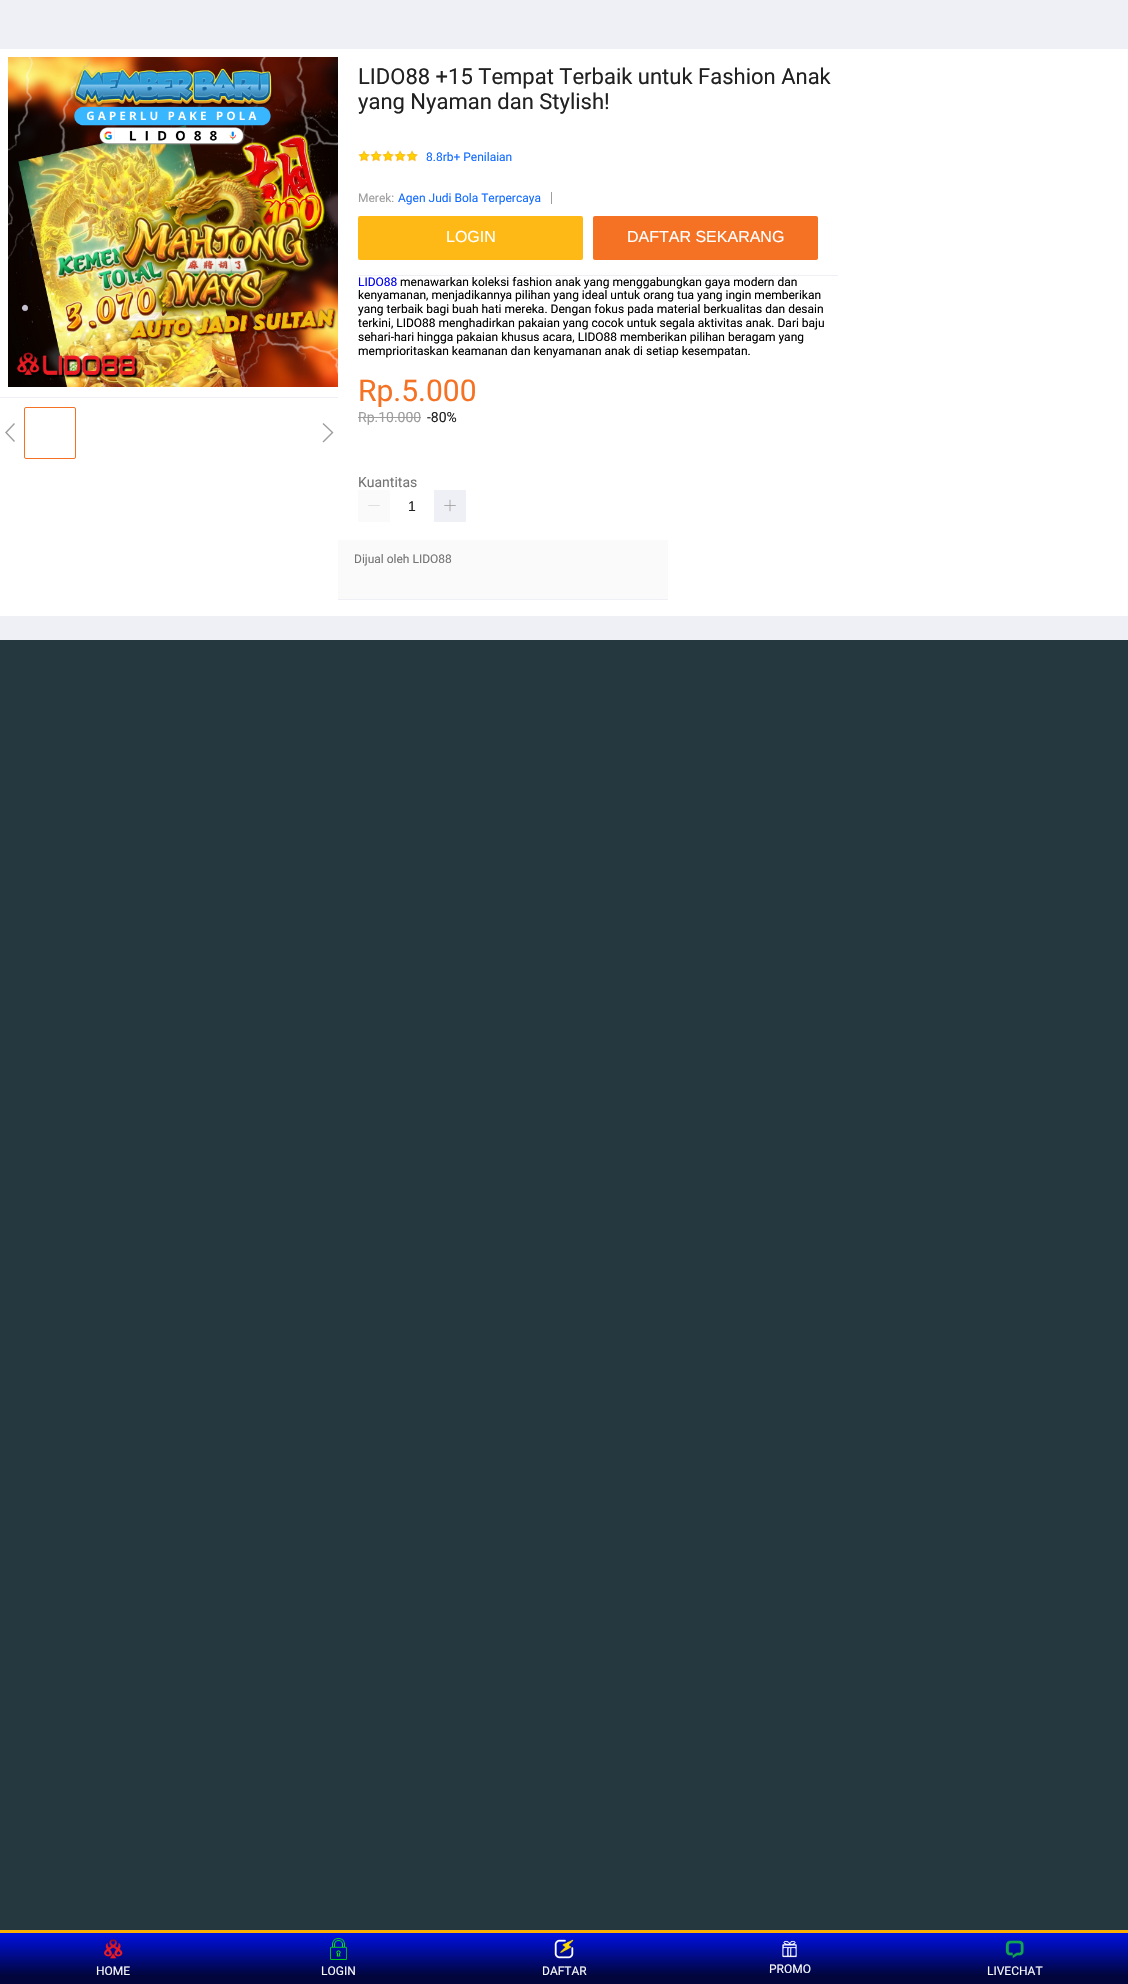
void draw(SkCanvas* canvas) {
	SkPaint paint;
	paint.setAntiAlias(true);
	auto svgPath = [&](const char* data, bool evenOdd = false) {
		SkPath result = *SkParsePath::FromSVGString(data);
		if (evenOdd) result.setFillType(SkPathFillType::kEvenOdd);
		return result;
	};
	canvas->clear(0xff26383f);
	paint.setColor(0xffeff0f5);
	canvas->drawRect(SkRect::MakeXYWH(0, 0, 1128, 49), paint);
	canvas->drawRect(SkRect::MakeXYWH(0, 616, 1128, 24), paint);
	paint.setColor(0xffffffff);
	canvas->drawRect(SkRect::MakeXYWH(0, 49, 1128, 567), paint);
	paint.setColor(0xffeff0f5);
	canvas->drawRect(SkRect::MakeXYWH(0, 397, 338, 1), paint);
	canvas->drawImageRect(SkImages::DeferredFromEncodedData(SkData::MakeFromFileName("img1.png")), SkRect::MakeXYWH(8, 57, 330, 330), SkSamplingOptions());
	paint.setColor(0xff9e9e9e);
	canvas->drawPath(svgPath("M15 441L7 432.5L15 424L14 423L5 432.5L14 442Z"), paint);
	paint.setStroke(true);
	paint.setStrokeWidth(1);
	paint.setColor(0xfff57224);
	canvas->drawRoundRect(SkRect::MakeXYWH(24.5, 407.5, 51, 51), 1.5, 1.5, paint);
	paint.setStroke(false);
	paint.setColor(0xff9e9e9e);
	canvas->drawPath(svgPath("M323.5 442.5L322.5 441.5L331.5 432.5L322.5 424L323.5 423L333.5 432.5Z"), paint);
	SkFont f1(fontMgr->matchFamilyStyle("Roboto", SkFontStyle::Normal()), 22);
	f1.setSubpixel(true);
	paint.setColor(0xff212121);
	canvas->drawString("LIDO88 +15 Tempat Terbaik untuk Fashion Anak", 358, 84, f1, paint);
	canvas->drawString("yang Nyaman dan Stylish!", 358, 109, f1, paint);
	canvas->drawImageRect(SkImages::DeferredFromEncodedData(SkData::MakeFromFileName("img2.png")), SkRect::MakeXYWH(358, 150, 12, 12), SkSamplingOptions());
	canvas->drawImageRect(SkImages::DeferredFromEncodedData(SkData::MakeFromFileName("img2.png")), SkRect::MakeXYWH(370, 150, 12, 12), SkSamplingOptions());
	canvas->drawImageRect(SkImages::DeferredFromEncodedData(SkData::MakeFromFileName("img2.png")), SkRect::MakeXYWH(382, 150, 12, 12), SkSamplingOptions());
	canvas->drawImageRect(SkImages::DeferredFromEncodedData(SkData::MakeFromFileName("img2.png")), SkRect::MakeXYWH(394, 150, 12, 12), SkSamplingOptions());
	canvas->drawImageRect(SkImages::DeferredFromEncodedData(SkData::MakeFromFileName("img2.png")), SkRect::MakeXYWH(406, 150, 12, 12), SkSamplingOptions());
	SkFont f2(fontMgr->matchFamilyStyle("Roboto", SkFontStyle::Normal()), 12);
	f2.setSubpixel(true);
	paint.setColor(0xff136cff);
	canvas->drawString("8.8rb+ Penilaian", 426, 161, f2, paint);
	paint.setColor(0xffeff0f5);
	canvas->drawRect(SkRect::MakeXYWH(358, 275, 480, 1), paint);
	paint.setColor(0xff9e9e9e);
	canvas->drawString("Merek:", 358, 202, f2, paint);
	paint.setColor(0xff136cff);
	canvas->drawString("Agen Judi Bola Terpercaya", 398, 202, f2, paint);
	paint.setColor(0xff9e9e9e);
	canvas->drawRect(SkRect::MakeXYWH(551, 192, 1, 12), paint);
	paint.setColor(0xffffb916);
	canvas->drawRoundRect(SkRect::MakeXYWH(358, 216, 225, 44), 2, 2, paint);
	SkFont f3(fontMgr->matchFamilyStyle("Liberation Sans", SkFontStyle::Normal()), 16);
	f3.setSubpixel(true);
	paint.setColor(0xffffffff);
	canvas->drawString("LOGIN", 446, 242, f3, paint);
	paint.setColor(0xfff57224);
	canvas->drawRoundRect(SkRect::MakeXYWH(593, 216, 225, 44), 2, 2, paint);
	paint.setColor(0xffffffff);
	canvas->drawString("DAFTAR SEKARANG", 627, 242, f3, paint);
	paint.setColor(0xff0000ee);
	canvas->drawString("LIDO88", 358, 286, f2, paint);
	paint.setColor(0xff000000);
	canvas->drawString("menawarkan koleksi fashion anak yang menggabungkan gaya modern dan", 400, 286, f2, paint);
	canvas->drawString("kenyamanan, menjadikannya pilihan yang ideal untuk orang tua yang ingin memberikan", 358, 299, f2, paint);
	canvas->drawString("yang terbaik bagi buah hati mereka. Dengan fokus pada material berkualitas dan desain", 358, 313, f2, paint);
	canvas->drawString("terkini, LIDO88 menghadirkan pakaian yang cocok untuk segala aktivitas anak. Dari baju", 358, 327, f2, paint);
	canvas->drawString("sehari-hari hingga pakaian khusus acara, LIDO88 memberikan pilihan beragam yang", 358, 341, f2, paint);
	canvas->drawString("memprioritaskan keamanan dan kenyamanan anak di setiap kesempatan.", 358, 355, f2, paint);
	SkFont f4(fontMgr->matchFamilyStyle("Roboto", SkFontStyle::Normal()), 30);
	f4.setSubpixel(true);
	paint.setColor(0xfff57224);
	canvas->drawString("Rp.5.000", 358, 401, f4, paint);
	SkFont f5(fontMgr->matchFamilyStyle("Roboto", SkFontStyle::Normal()), 14);
	f5.setSubpixel(true);
	paint.setColor(0xff9e9e9e);
	canvas->drawString("Rp.10.000", 358, 422, f5, paint);
	canvas->drawRect(SkRect::MakeXYWH(358, 417, 63, 1), paint);
	paint.setColor(0xff212121);
	canvas->drawString("-80%", 427, 422, f5, paint);
	paint.setColor(0xff757575);
	canvas->drawString("Kuantitas", 358, 487, f5, paint);
	paint.setColor(0xfffafafa);
	canvas->drawRect(SkRect::MakeXYWH(358, 490, 32, 32), paint);
	canvas->drawImageRect(SkImages::DeferredFromEncodedData(SkData::MakeFromFileName("img3.png")), SkRect::MakeXYWH(368, 505, 12, 1), SkSamplingOptions());
	paint.setColor(0xffeff0f5);
	canvas->drawRect(SkRect::MakeXYWH(434, 490, 32, 32), paint);
	canvas->drawImageRect(SkImages::DeferredFromEncodedData(SkData::MakeFromFileName("img4.png")), SkRect::MakeXYWH(444, 499, 12, 13), SkSamplingOptions());
	SkFont f6(fontMgr->matchFamilyStyle("Liberation Sans", SkFontStyle::Normal()), 14);
	f6.setSubpixel(true);
	paint.setColor(0xff212121);
	canvas->drawString("1", 408, 511, f6, paint);
	paint.setColor(0xfffafafa);
	canvas->drawRect(SkRect::MakeXYWH(338, 540, 330, 59), paint);
	paint.setColor(0xff757575);
	canvas->drawString("Dijual oleh LIDO88", 354, 563, f2, paint);
	paint.setColor(0xffeff0f5);
	canvas->drawRect(SkRect::MakeXYWH(338, 599, 330, 1), paint);
	paint.setColor(0xfffdae03);
	canvas->drawRect(SkRect::MakeXYWH(0, 1930, 1128, 3), paint);
	{
		const SkColor colors[] = {0xff0011e2, 0xff01053c};
		const float stops[] = {0, 0.84};
		const SkPoint ends[] = {{564, 1933}, {564, 1984}};
		paint.setShader(SkGradientShader::MakeLinear(ends, colors, stops, 2, SkTileMode::kClamp));
		paint.setAlpha(255);
	}
	canvas->drawRect(SkRect::MakeXYWH(0, 1933, 1128, 51), paint);
	canvas->drawImageRect(SkImages::DeferredFromEncodedData(SkData::MakeFromFileName("img5.png")), SkRect::MakeXYWH(103, 1939, 20, 20), SkSamplingOptions());
	paint.setShader(nullptr);
	paint.setColor(0xfff8f8f8);
	canvas->drawString("HOME", 96, 1975, f2, paint);
	canvas->drawImageRect(SkImages::DeferredFromEncodedData(SkData::MakeFromFileName("img6.png")), SkRect::MakeXYWH(330, 1938, 17, 22), SkSamplingOptions());
	canvas->drawString("LOGIN", 321, 1975, f2, paint);
	canvas->drawImageRect(SkImages::DeferredFromEncodedData(SkData::MakeFromFileName("img7.png")), SkRect::MakeXYWH(554, 1939, 20, 20), SkSamplingOptions());
	canvas->drawString("DAFTAR", 542, 1975, f2, paint);
	canvas->drawImageRect(SkImages::DeferredFromEncodedData(SkData::MakeFromFileName("img8.png")), SkRect::MakeXYWH(782, 1940, 15, 18), SkSamplingOptions());
	canvas->drawString("PROMO", 769, 1973, f2, paint);
	canvas->drawImageRect(SkImages::DeferredFromEncodedData(SkData::MakeFromFileName("img9.png")), SkRect::MakeXYWH(1005, 1940, 19, 19), SkSamplingOptions());
	canvas->drawString("LIVECHAT", 987, 1975, f2, paint);
}
